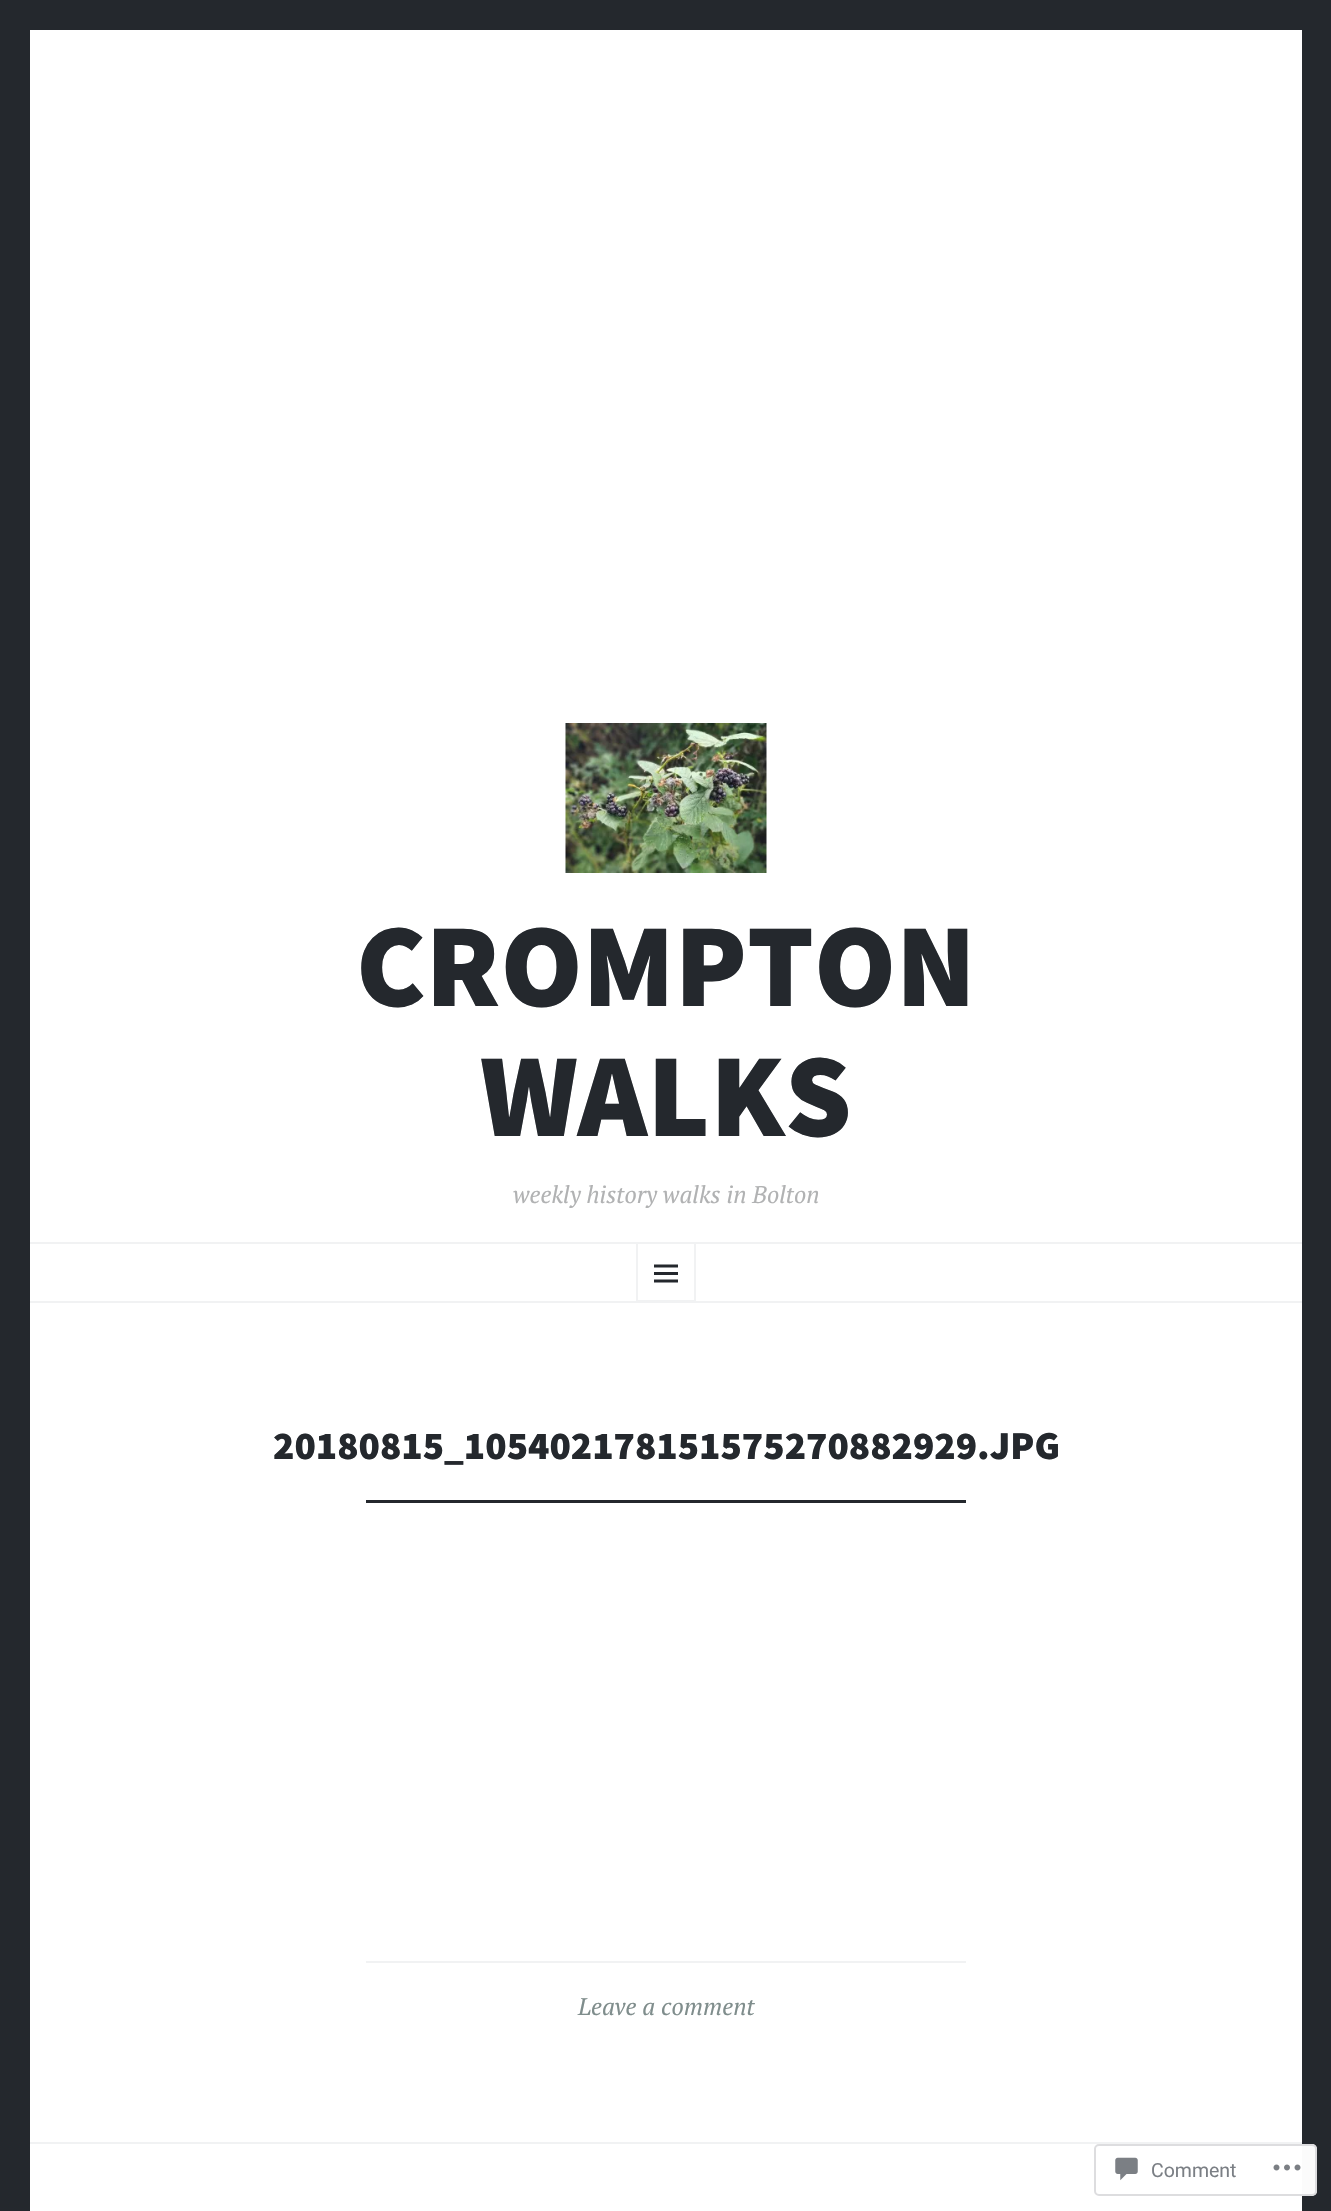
void draw(SkCanvas* canvas) {
	SkPaint paint;
	paint.setAntiAlias(true);
	canvas->clear(0xff24282d);
	paint.setColor(0xffffffff);
	canvas->drawRect(SkRect::MakeXYWH(30, 30, 1272, 2181), paint);
	canvas->drawImageRect(SkImages::DeferredFromEncodedData(SkData::MakeFromFileName("img1.png")), SkRect::MakeXYWH(565, 723, 202, 150), SkSamplingOptions());
	SkFont f1(fontMgr->matchFamilyStyle("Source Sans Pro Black", SkFontStyle(900, SkFontStyle::kNormal_Width, SkFontStyle::kUpright_Slant)), 118.75);
	f1.setSubpixel(true);
	paint.setColor(0xff24282d);
	canvas->drawString("CROMPTON", 356, 1006, f1, paint);
	canvas->drawString("WALKS", 480, 1136, f1, paint);
	SkFont f2(fontMgr->matchFamilyStyle("PT Serif", SkFontStyle::Italic()), 24.1);
	f2.setSubpixel(true);
	paint.setColor(0xffb1b2b3);
	canvas->drawString("weekly history walks in Bolton", 513, 1203, f2, paint);
	paint.setColor(0xfff1f2f3);
	canvas->drawRect(SkRect::MakeXYWH(30, 1242, 1272, 2), paint);
	canvas->drawRect(SkRect::MakeXYWH(30, 1301, 1272, 2), paint);
	paint.setStroke(true);
	paint.setStrokeWidth(2);
	canvas->drawRect(SkRect::MakeXYWH(637, 1243, 58, 58), paint);
	canvas->drawImageRect(SkImages::DeferredFromEncodedData(SkData::MakeFromFileName("img2.png")), SkRect::MakeXYWH(654, 1264, 24, 19), SkSamplingOptions());
	SkFont f3(fontMgr->matchFamilyStyle("Source Sans Pro Black", SkFontStyle(900, SkFontStyle::kNormal_Width, SkFontStyle::kUpright_Slant)), 39.6);
	f3.setSubpixel(true);
	paint.setStroke(false);
	paint.setColor(0xff24282d);
	canvas->drawString("20180815_105402178151575270882929.JPG", 273, 1459, f3, paint);
	canvas->drawRect(SkRect::MakeXYWH(366, 1500, 600, 3), paint);
	paint.setColor(0xfff1f2f3);
	canvas->drawRect(SkRect::MakeXYWH(366, 1961, 600, 2), paint);
	paint.setColor(0xff7f8d8c);
	canvas->drawString("Leave a comment", 578, 2015, f2, paint);
	paint.setColor(0xfff1f2f3);
	canvas->drawRect(SkRect::MakeXYWH(30, 2142, 1272, 2), paint);
	paint.setColor(0xfaffffff);
	canvas->drawRoundRect(SkRect::MakeXYWH(1094, 2144, 223, 52), 5, 5, paint);
	paint.setStroke(true);
	paint.setColor(0xfadcdcde);
	canvas->drawRoundRect(SkRect::MakeXYWH(1095, 2145, 221, 50), 4, 4, paint);
	canvas->drawImageRect(SkImages::DeferredFromEncodedData(SkData::MakeFromFileName("img3.png")), SkRect::MakeXYWH(1115, 2157, 23, 24), SkSamplingOptions());
	SkFont f4(fontMgr->matchFamilyStyle("Roboto", SkFontStyle::Normal()), 19.5);
	f4.setSubpixel(true);
	paint.setStroke(false);
	paint.setColor(0xff7b7f85);
	canvas->drawString("Comment", 1151, 2177, f4, paint);
	canvas->drawImageRect(SkImages::DeferredFromEncodedData(SkData::MakeFromFileName("img4.png")), SkRect::MakeXYWH(1273, 2164, 28, 7), SkSamplingOptions());
}
